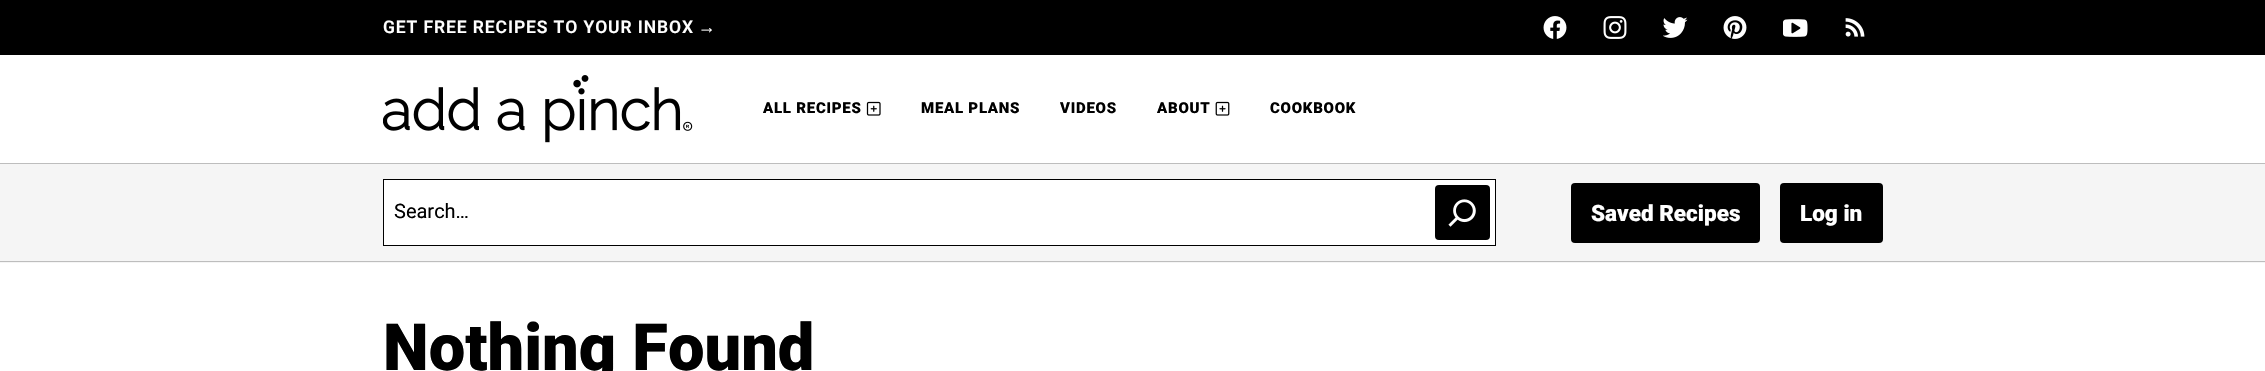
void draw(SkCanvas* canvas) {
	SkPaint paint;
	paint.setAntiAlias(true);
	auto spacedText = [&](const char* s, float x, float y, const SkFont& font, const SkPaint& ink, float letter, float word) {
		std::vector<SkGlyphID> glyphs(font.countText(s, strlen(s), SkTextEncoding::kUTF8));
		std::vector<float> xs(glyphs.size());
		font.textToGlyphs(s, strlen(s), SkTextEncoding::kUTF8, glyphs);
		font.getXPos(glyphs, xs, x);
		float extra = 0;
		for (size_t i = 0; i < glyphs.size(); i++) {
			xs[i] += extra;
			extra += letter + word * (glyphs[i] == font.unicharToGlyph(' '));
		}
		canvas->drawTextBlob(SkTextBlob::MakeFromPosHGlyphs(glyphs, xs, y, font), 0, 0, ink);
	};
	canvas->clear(0xffffffff);
	paint.setColor(0xff000000);
	canvas->drawRect(SkRect::MakeXYWH(0, 0, 2265, 55), paint);
	SkFont f1(fontMgr->matchFamilyStyle("Roboto", SkFontStyle(600, SkFontStyle::kNormal_Width, SkFontStyle::kUpright_Slant)), 17.5);
	f1.setSubpixel(true);
	paint.setColor(0xffffffff);
	spacedText("GET FREE RECIPES TO YOUR INBOX", 383, 33, f1, paint, 0.9, 0);
	SkFont f2(fontMgr->matchFamilyStyle("Liberation Sans", SkFontStyle::Bold()), 17.5);
	f2.setSubpixel(true);
	spacedText("→", 698, 33, f2, paint, 0.9, 0);
	canvas->drawImageRect(SkImages::DeferredFromEncodedData(SkData::MakeFromFileName("img1.png")), SkRect::MakeXYWH(1543, 16, 24, 23), SkSamplingOptions());
	canvas->drawImageRect(SkImages::DeferredFromEncodedData(SkData::MakeFromFileName("img2.png")), SkRect::MakeXYWH(1603, 16, 24, 23), SkSamplingOptions());
	canvas->drawImageRect(SkImages::DeferredFromEncodedData(SkData::MakeFromFileName("img3.png")), SkRect::MakeXYWH(1663, 17, 25, 21), SkSamplingOptions());
	canvas->drawImageRect(SkImages::DeferredFromEncodedData(SkData::MakeFromFileName("img4.png")), SkRect::MakeXYWH(1723, 16, 24, 23), SkSamplingOptions());
	canvas->drawImageRect(SkImages::DeferredFromEncodedData(SkData::MakeFromFileName("img5.png")), SkRect::MakeXYWH(1783, 19, 25, 18), SkSamplingOptions());
	canvas->drawImageRect(SkImages::DeferredFromEncodedData(SkData::MakeFromFileName("img6.png")), SkRect::MakeXYWH(1845, 18, 20, 19), SkSamplingOptions());
	paint.setColor(0xffbdbdbd);
	canvas->drawRect(SkRect::MakeXYWH(0, 163, 2265, 1), paint);
	canvas->drawImageRect(SkImages::DeferredFromEncodedData(SkData::MakeFromFileName("img7.png")), SkRect::MakeXYWH(383, 75, 310, 68), SkSamplingOptions());
	SkFont f3(fontMgr->matchFamilyStyle("Roboto", SkFontStyle(900, SkFontStyle::kNormal_Width, SkFontStyle::kUpright_Slant)), 15);
	f3.setSubpixel(true);
	paint.setColor(0xff000000);
	spacedText("ALL RECIPES", 763, 113, f3, paint, 0.75, 0);
	canvas->drawImageRect(SkImages::DeferredFromEncodedData(SkData::MakeFromFileName("img8.png")), SkRect::MakeXYWH(866, 101, 15, 15), SkSamplingOptions());
	spacedText("MEAL PLANS", 921, 113, f3, paint, 0.75, 0);
	spacedText("VIDEOS", 1060, 113, f3, paint, 0.75, 0);
	spacedText("ABOUT", 1157, 113, f3, paint, 0.75, 0);
	canvas->drawImageRect(SkImages::DeferredFromEncodedData(SkData::MakeFromFileName("img9.png")), SkRect::MakeXYWH(1215, 101, 15, 15), SkSamplingOptions());
	spacedText("COOKBOOK", 1270, 113, f3, paint, 0.75, 0);
	paint.setColor(0xfff5f5f5);
	canvas->drawRect(SkRect::MakeXYWH(0, 164, 2265, 99), paint);
	paint.setColor(0xffbdbdbd);
	canvas->drawRect(SkRect::MakeXYWH(0, 261, 2265, 1), paint);
	paint.setColor(0xffffffff);
	canvas->drawRect(SkRect::MakeXYWH(383.5, 179.5, 1112, 66), paint);
	paint.setStroke(true);
	paint.setStrokeWidth(1);
	paint.setColor(0xff000000);
	canvas->drawRect(SkRect::MakeXYWH(383.5, 179.5, 1112, 66), paint);
	SkFont f4(fontMgr->matchFamilyStyle("Roboto", SkFontStyle::Normal()), 20);
	f4.setSubpixel(true);
	paint.setStroke(false);
	canvas->drawString("Search…", 394, 218, f4, paint);
	canvas->drawRoundRect(SkRect::MakeXYWH(1435, 185, 55, 55), 4, 4, paint);
	canvas->drawImageRect(SkImages::DeferredFromEncodedData(SkData::MakeFromFileName("img10.png")), SkRect::MakeXYWH(1448, 199, 28, 28), SkSamplingOptions());
	canvas->drawRoundRect(SkRect::MakeXYWH(1571, 183, 189, 60), 4, 4, paint);
	SkFont f5(fontMgr->matchFamilyStyle("Roboto", SkFontStyle(900, SkFontStyle::kNormal_Width, SkFontStyle::kUpright_Slant)), 22.5);
	f5.setSubpixel(true);
	paint.setColor(0xffffffff);
	canvas->drawString("Saved Recipes", 1591, 221, f5, paint);
	paint.setColor(0xff000000);
	canvas->drawRoundRect(SkRect::MakeXYWH(1780, 183, 103, 60), 4, 4, paint);
	paint.setColor(0xffffffff);
	canvas->drawString("Log in", 1800, 221, f5, paint);
	SkFont f6(fontMgr->matchFamilyStyle("Roboto", SkFontStyle(900, SkFontStyle::kNormal_Width, SkFontStyle::kUpright_Slant)), 65);
	f6.setSubpixel(true);
	paint.setColor(0xff000000);
	canvas->drawString("Nothing Found", 383, 370, f6, paint);
}
